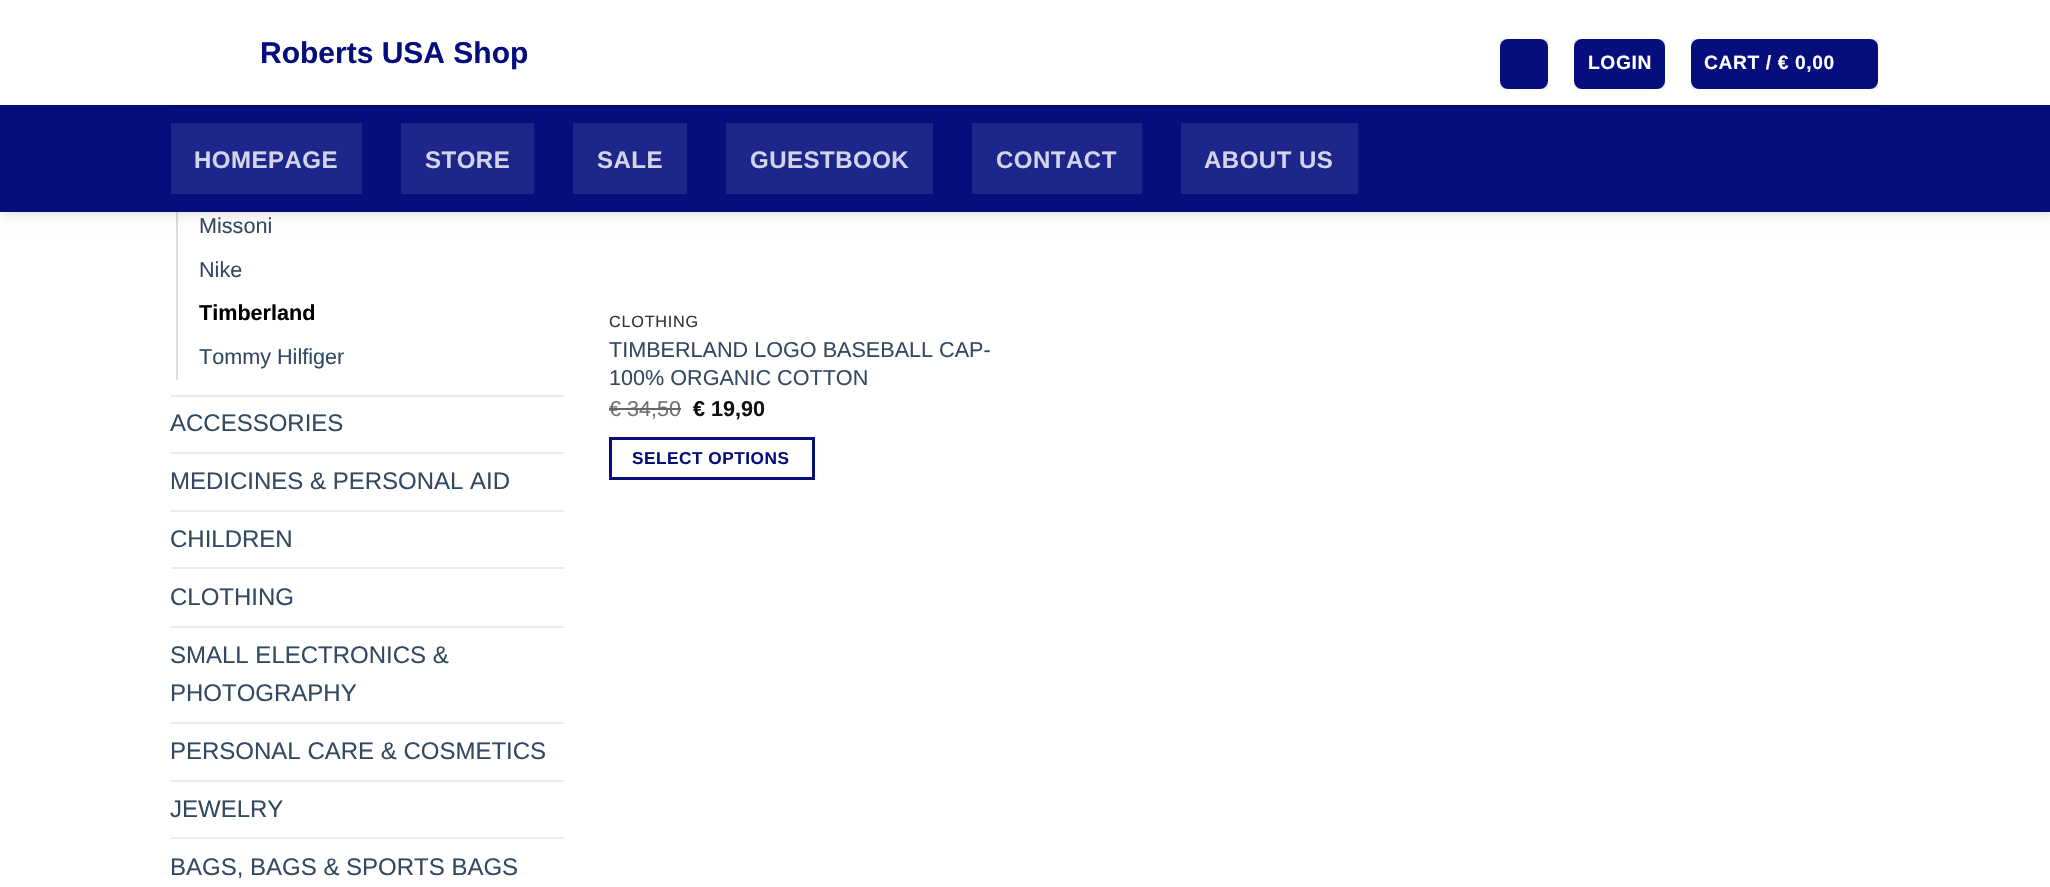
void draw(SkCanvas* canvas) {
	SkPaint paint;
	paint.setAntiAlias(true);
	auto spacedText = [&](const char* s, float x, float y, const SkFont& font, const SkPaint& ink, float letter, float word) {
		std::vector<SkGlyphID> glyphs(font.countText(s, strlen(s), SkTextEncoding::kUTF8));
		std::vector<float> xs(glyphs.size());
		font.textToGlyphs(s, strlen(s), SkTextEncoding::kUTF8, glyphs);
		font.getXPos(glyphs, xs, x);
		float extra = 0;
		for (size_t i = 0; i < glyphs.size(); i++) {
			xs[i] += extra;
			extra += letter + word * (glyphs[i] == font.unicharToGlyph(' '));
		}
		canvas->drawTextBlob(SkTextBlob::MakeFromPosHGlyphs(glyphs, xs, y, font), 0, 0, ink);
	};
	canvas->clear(0xffffffff);
	paint.setColor(0xffdddddd);
	canvas->drawRect(SkRect::MakeXYWH(176, 212, 2, 168), paint);
	paint.setColor(0x26000000);
	paint.setMaskFilter(SkMaskFilter::MakeBlur(kNormal_SkBlurStyle, 7.5));
	canvas->drawRect(SkRect::MakeXYWH(2, 2, 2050, 211), paint);
	paint.setMaskFilter(nullptr);
	paint.setColor(0xffffffff);
	canvas->drawRect(SkRect::MakeXYWH(0, 0, 2050, 105), paint);
	SkFont f1(fontMgr->matchFamilyStyle("Liberation Sans", SkFontStyle::Bold()), 30);
	f1.setSubpixel(true);
	paint.setColor(0xff060e7e);
	canvas->drawString("Roberts USA Shop", 260, 63, f1, paint);
	canvas->drawRoundRect(SkRect::MakeXYWH(1500, 39, 48, 50), 8, 8, paint);
	paint.setStroke(true);
	paint.setStrokeWidth(2);
	paint.setColor(0x0d000000);
	canvas->drawRect(SkRect::MakeXYWH(1501, 40, 46, 48), paint);
	paint.setStroke(false);
	paint.setColor(0xff060e7e);
	canvas->drawRoundRect(SkRect::MakeXYWH(1574, 39, 91, 50), 8, 8, paint);
	paint.setStroke(true);
	paint.setColor(0x0d000000);
	canvas->drawRect(SkRect::MakeXYWH(1575, 40, 89, 48), paint);
	SkFont f2(fontMgr->matchFamilyStyle("Liberation Sans", SkFontStyle::Bold()), 19.25);
	f2.setSubpixel(true);
	paint.setStroke(false);
	paint.setColor(0xffffffff);
	spacedText("LOGIN", 1588, 69, f2, paint, 0.6, 0);
	paint.setColor(0xff060e7e);
	canvas->drawRoundRect(SkRect::MakeXYWH(1691, 39, 187, 50), 8, 8, paint);
	paint.setStroke(true);
	paint.setColor(0x0d000000);
	canvas->drawRect(SkRect::MakeXYWH(1692, 40, 185, 48), paint);
	paint.setStroke(false);
	paint.setColor(0xffffffff);
	spacedText("CART / € 0,00", 1704, 69, f2, paint, 0.6, 0);
	paint.setColor(0xff060e7e);
	canvas->drawRect(SkRect::MakeXYWH(0, 105, 2050, 107), paint);
	paint.setColor(0xff050d71);
	canvas->drawRect(SkRect::MakeXYWH(171, 105, 1710, 2), paint);
	paint.setColor(0xff1f268b);
	canvas->drawRect(SkRect::MakeXYWH(171, 123, 191, 71), paint);
	SkFont f3(fontMgr->matchFamilyStyle("Liberation Sans", SkFontStyle::Bold()), 24);
	f3.setSubpixel(true);
	paint.setColor(0xffd2d4e8);
	spacedText("HOMEPAGE", 194, 168, f3, paint, 0.5, 0);
	paint.setColor(0xff1f268b);
	canvas->drawRect(SkRect::MakeXYWH(401, 123, 133, 71), paint);
	paint.setColor(0xffd2d4e8);
	spacedText("STORE", 425, 168, f3, paint, 0.5, 0);
	paint.setColor(0xff1f268b);
	canvas->drawRect(SkRect::MakeXYWH(573, 123, 114, 71), paint);
	paint.setColor(0xffd2d4e8);
	spacedText("SALE", 597, 168, f3, paint, 0.5, 0);
	paint.setColor(0xff1f268b);
	canvas->drawRect(SkRect::MakeXYWH(726, 123, 207, 71), paint);
	paint.setColor(0xffd2d4e8);
	spacedText("GUESTBOOK", 750, 168, f3, paint, 0.5, 0);
	paint.setColor(0xff1f268b);
	canvas->drawRect(SkRect::MakeXYWH(972, 123, 170, 71), paint);
	paint.setColor(0xffd2d4e8);
	spacedText("CONTACT", 996, 168, f3, paint, 0.5, 0);
	paint.setColor(0xff1f268b);
	canvas->drawRect(SkRect::MakeXYWH(1181, 123, 177, 71), paint);
	paint.setColor(0xffd2d4e8);
	spacedText("ABOUT US", 1204, 168, f3, paint, 0.5, 0);
	SkFont f4(fontMgr->matchFamilyStyle("Liberation Sans", SkFontStyle::Normal()), 21.6);
	f4.setSubpixel(true);
	paint.setColor(0xff334862);
	canvas->drawString("Missoni", 199, 233, f4, paint);
	canvas->drawString("Nike", 199, 277, f4, paint);
	SkFont f5(fontMgr->matchFamilyStyle("Liberation Sans", SkFontStyle::Bold()), 21.6);
	f5.setSubpixel(true);
	paint.setColor(0xff000000);
	canvas->drawString("Timberland", 199, 320, f5, paint);
	paint.setColor(0xff334862);
	canvas->drawString("Tommy Hilfiger", 199, 364, f4, paint);
	paint.setColor(0xffececec);
	canvas->drawRect(SkRect::MakeXYWH(171, 395, 393, 2), paint);
	SkFont f6(fontMgr->matchFamilyStyle("Liberation Sans", SkFontStyle::Normal()), 24);
	f6.setSubpixel(true);
	paint.setColor(0xff334862);
	canvas->drawString("ACCESSORIES", 170, 431, f6, paint);
	paint.setColor(0xffececec);
	canvas->drawRect(SkRect::MakeXYWH(171, 452, 393, 2), paint);
	paint.setColor(0xff334862);
	canvas->drawString("MEDICINES & PERSONAL AID", 170, 489, f6, paint);
	paint.setColor(0xffececec);
	canvas->drawRect(SkRect::MakeXYWH(171, 510, 393, 2), paint);
	paint.setColor(0xff334862);
	canvas->drawString("CHILDREN", 170, 547, f6, paint);
	paint.setColor(0xffececec);
	canvas->drawRect(SkRect::MakeXYWH(171, 567, 393, 2), paint);
	paint.setColor(0xff334862);
	canvas->drawString("CLOTHING", 170, 605, f6, paint);
	paint.setColor(0xffececec);
	canvas->drawRect(SkRect::MakeXYWH(171, 626, 393, 2), paint);
	paint.setColor(0xff334862);
	canvas->drawString("SMALL ELECTRONICS &", 170, 663, f6, paint);
	canvas->drawString("PHOTOGRAPHY", 170, 701, f6, paint);
	paint.setColor(0xffececec);
	canvas->drawRect(SkRect::MakeXYWH(171, 722, 393, 2), paint);
	paint.setColor(0xff334862);
	canvas->drawString("PERSONAL CARE & COSMETICS", 170, 759, f6, paint);
	paint.setColor(0xffececec);
	canvas->drawRect(SkRect::MakeXYWH(171, 780, 393, 2), paint);
	paint.setColor(0xff334862);
	canvas->drawString("JEWELRY", 170, 817, f6, paint);
	paint.setColor(0xffececec);
	canvas->drawRect(SkRect::MakeXYWH(171, 837, 393, 2), paint);
	paint.setColor(0xff334862);
	canvas->drawString("BAGS, BAGS & SPORTS BAGS", 170, 875, f6, paint);
	SkFont f7(fontMgr->matchFamilyStyle("Liberation Sans", SkFontStyle::Normal()), 16.25);
	f7.setSubpixel(true);
	paint.setColor(0xff333333);
	spacedText("CLOTHING", 609, 327, f7, paint, 0.75, 0);
	paint.setColor(0xff334862);
	canvas->drawString("TIMBERLAND LOGO BASEBALL CAP-", 609, 357, f4, paint);
	canvas->drawString("100% ORGANIC COTTON", 609, 385, f4, paint);
	paint.setColor(0xff707070);
	canvas->drawString("€ 34,50", 609, 416, f4, paint);
	paint.setColor(0xff666666);
	canvas->drawRect(SkRect::MakeXYWH(609, 408, 72, 2), paint);
	paint.setColor(0xff111111);
	canvas->drawString("€ 19,90", 693, 416, f5, paint);
	paint.setStroke(true);
	paint.setStrokeWidth(3);
	paint.setColor(0xff060e7e);
	canvas->drawRect(SkRect::MakeXYWH(610.5, 438.5, 203, 40), paint);
	SkFont f8(fontMgr->matchFamilyStyle("Liberation Sans", SkFontStyle::Bold()), 17.25);
	f8.setSubpixel(true);
	paint.setStroke(false);
	spacedText("SELECT OPTIONS", 632, 464, f8, paint, 0.5, 0);
}
